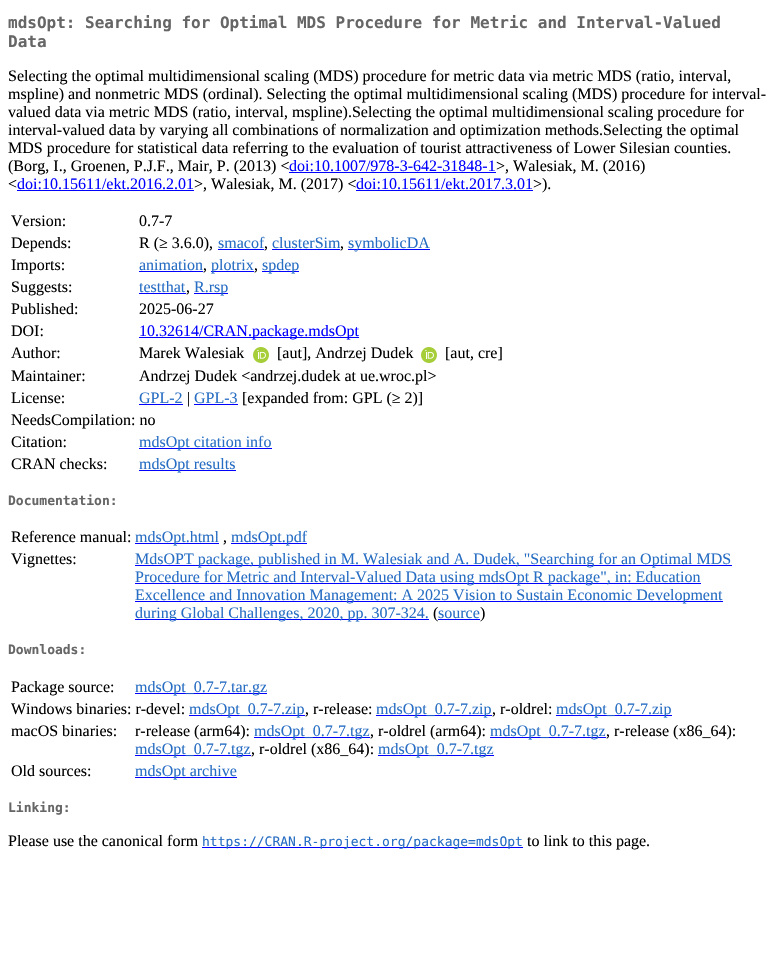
void draw(SkCanvas* canvas) {
	SkPaint paint;
	paint.setAntiAlias(true);
	canvas->clear(0xffffffff);
	SkFont f1(fontMgr->matchFamilyStyle("DejaVu Sans Mono", SkFontStyle::Bold()), 16);
	f1.setSubpixel(true);
	paint.setColor(0xff666666);
	canvas->drawString("mdsOpt: Searching for Optimal MDS Procedure for Metric and Interval-Valued", 8, 28, f1, paint);
	canvas->drawString("Data", 8, 47, f1, paint);
	SkFont f2(fontMgr->matchFamilyStyle("Liberation Serif", SkFontStyle::Normal()), 16);
	f2.setSubpixel(true);
	paint.setColor(0xff000000);
	canvas->drawString("Selecting the optimal multidimensional scaling (MDS) procedure for metric data via metric MDS (ratio, interval,", 8, 81, f2, paint);
	canvas->drawString("mspline) and nonmetric MDS (ordinal). Selecting the optimal multidimensional scaling (MDS) procedure for interval-", 8, 99, f2, paint);
	canvas->drawString("valued data via metric MDS (ratio, interval, mspline).Selecting the optimal multidimensional scaling procedure for", 8, 117, f2, paint);
	canvas->drawString("interval-valued data by varying all combinations of normalization and optimization methods.Selecting the optimal", 8, 135, f2, paint);
	canvas->drawString("MDS procedure for statistical data referring to the evaluation of tourist attractiveness of Lower Silesian counties.", 8, 153, f2, paint);
	canvas->drawString("(Borg, I., Groenen, P.J.F., Mair, P. (2013) <", 8, 171, f2, paint);
	paint.setColor(0xff0000ff);
	canvas->drawString("doi:10.1007/978-3-642-31848-1", 289, 171, f2, paint);
	canvas->drawRect(SkRect::MakeXYWH(289, 172, 207, 1), paint);
	paint.setColor(0xff000000);
	canvas->drawString(">, Walesiak, M. (2016)", 496, 171, f2, paint);
	canvas->drawString("<", 8, 189, f2, paint);
	paint.setColor(0xff0000ff);
	canvas->drawString("doi:10.15611/ekt.2016.2.01", 17, 189, f2, paint);
	canvas->drawRect(SkRect::MakeXYWH(17, 190, 177, 1), paint);
	paint.setColor(0xff000000);
	canvas->drawString(">, Walesiak, M. (2017) <", 194, 189, f2, paint);
	paint.setColor(0xff0000ff);
	canvas->drawString("doi:10.15611/ekt.2017.3.01", 356, 189, f2, paint);
	canvas->drawRect(SkRect::MakeXYWH(356, 190, 177, 1), paint);
	paint.setColor(0xff000000);
	canvas->drawString(">).", 533, 189, f2, paint);
	canvas->drawString("Version:", 11, 226, f2, paint);
	canvas->drawString("0.7-7", 139, 226, f2, paint);
	canvas->drawString("Depends:", 11, 248, f2, paint);
	canvas->drawString("R (≥ 3.6.0),", 139, 248, f2, paint);
	paint.setColor(0xff276dc3);
	canvas->drawString("smacof", 218, 248, f2, paint);
	paint.setColor(0xff0000ff);
	canvas->drawRect(SkRect::MakeXYWH(218, 249, 46, 1), paint);
	paint.setColor(0xff000000);
	canvas->drawString(",", 264, 248, f2, paint);
	paint.setColor(0xff276dc3);
	canvas->drawString("clusterSim", 272, 248, f2, paint);
	paint.setColor(0xff0000ff);
	canvas->drawRect(SkRect::MakeXYWH(272, 249, 68, 1), paint);
	paint.setColor(0xff000000);
	canvas->drawString(",", 340, 248, f2, paint);
	paint.setColor(0xff0000ff);
	canvas->drawRect(SkRect::MakeXYWH(348, 249, 82, 1), paint);
	paint.setColor(0xff276dc3);
	canvas->drawString("symbolicDA", 348, 248, f2, paint);
	paint.setColor(0xff000000);
	canvas->drawString("Imports:", 11, 270, f2, paint);
	paint.setColor(0xff276dc3);
	canvas->drawString("animation", 139, 270, f2, paint);
	paint.setColor(0xff0000ff);
	canvas->drawRect(SkRect::MakeXYWH(139, 271, 64, 1), paint);
	paint.setColor(0xff000000);
	canvas->drawString(",", 203, 270, f2, paint);
	paint.setColor(0xff0000ff);
	canvas->drawRect(SkRect::MakeXYWH(211, 271, 43, 1), paint);
	paint.setColor(0xff276dc3);
	canvas->drawString("plotrix", 211, 270, f2, paint);
	paint.setColor(0xff000000);
	canvas->drawString(",", 254, 270, f2, paint);
	paint.setColor(0xff0000ff);
	canvas->drawRect(SkRect::MakeXYWH(262, 271, 37, 1), paint);
	paint.setColor(0xff276dc3);
	canvas->drawString("spdep", 262, 270, f2, paint);
	paint.setColor(0xff000000);
	canvas->drawString("Suggests:", 11, 292, f2, paint);
	paint.setColor(0xff276dc3);
	canvas->drawString("testthat", 139, 292, f2, paint);
	paint.setColor(0xff0000ff);
	canvas->drawRect(SkRect::MakeXYWH(139, 293, 47, 1), paint);
	paint.setColor(0xff000000);
	canvas->drawString(",", 186, 292, f2, paint);
	paint.setColor(0xff0000ff);
	canvas->drawRect(SkRect::MakeXYWH(194, 293, 34, 1), paint);
	paint.setColor(0xff276dc3);
	canvas->drawString("R.rsp", 194, 292, f2, paint);
	paint.setColor(0xff000000);
	canvas->drawString("Published:", 11, 314, f2, paint);
	canvas->drawString("2025-06-27", 139, 314, f2, paint);
	canvas->drawString("DOI:", 11, 336, f2, paint);
	paint.setColor(0xff0000ff);
	canvas->drawRect(SkRect::MakeXYWH(139, 337, 220, 1), paint);
	canvas->drawString("10.32614/CRAN.package.mdsOpt", 139, 336, f2, paint);
	paint.setColor(0xff000000);
	canvas->drawString("Author:", 11, 358, f2, paint);
	canvas->drawString("Marek Walesiak", 139, 358, f2, paint);
	canvas->drawImageRect(SkImages::DeferredFromEncodedData(SkData::MakeFromFileName("img1.png")), SkRect::MakeXYWH(253, 347, 16, 16), SkSamplingOptions());
	canvas->drawString("[aut], Andrzej Dudek", 277, 358, f2, paint);
	canvas->drawImageRect(SkImages::DeferredFromEncodedData(SkData::MakeFromFileName("img1.png")), SkRect::MakeXYWH(421, 347, 16, 16), SkSamplingOptions());
	canvas->drawString("[aut, cre]", 445, 358, f2, paint);
	canvas->drawString("Maintainer:", 11, 381, f2, paint);
	canvas->drawString("Andrzej Dudek <andrzej.dudek at ue.wroc.pl>", 139, 381, f2, paint);
	canvas->drawString("License:", 11, 403, f2, paint);
	paint.setColor(0xff276dc3);
	canvas->drawString("GPL-2", 139, 403, f2, paint);
	paint.setColor(0xff0000ff);
	canvas->drawRect(SkRect::MakeXYWH(139, 404, 44, 1), paint);
	paint.setColor(0xff000000);
	canvas->drawString("|", 187, 403, f2, paint);
	paint.setColor(0xff276dc3);
	canvas->drawString("GPL-3", 194, 403, f2, paint);
	paint.setColor(0xff0000ff);
	canvas->drawRect(SkRect::MakeXYWH(194, 404, 44, 1), paint);
	paint.setColor(0xff000000);
	canvas->drawString("[expanded from: GPL (≥ 2)]", 242, 403, f2, paint);
	canvas->drawString("NeedsCompilation: no", 11, 425, f2, paint);
	canvas->drawString("Citation:", 11, 447, f2, paint);
	paint.setColor(0xff0000ff);
	canvas->drawRect(SkRect::MakeXYWH(139, 448, 133, 1), paint);
	paint.setColor(0xff276dc3);
	canvas->drawString("mdsOpt citation info", 139, 447, f2, paint);
	paint.setColor(0xff000000);
	canvas->drawString("CRAN checks:", 11, 469, f2, paint);
	paint.setColor(0xff0000ff);
	canvas->drawRect(SkRect::MakeXYWH(139, 470, 97, 1), paint);
	paint.setColor(0xff276dc3);
	canvas->drawString("mdsOpt results", 139, 469, f2, paint);
	SkFont f3(fontMgr->matchFamilyStyle("DejaVu Sans Mono", SkFontStyle::Bold()), 13);
	f3.setSubpixel(true);
	paint.setColor(0xff666666);
	canvas->drawString("Documentation:", 8, 505, f3, paint);
	paint.setColor(0xff000000);
	canvas->drawString("Reference manual:", 11, 542, f2, paint);
	paint.setColor(0xff0000ff);
	canvas->drawRect(SkRect::MakeXYWH(135, 543, 84, 1), paint);
	paint.setColor(0xff276dc3);
	canvas->drawString("mdsOpt.html", 135, 542, f2, paint);
	paint.setColor(0xff000000);
	canvas->drawString(",", 223, 542, f2, paint);
	paint.setColor(0xff0000ff);
	canvas->drawRect(SkRect::MakeXYWH(231, 543, 76, 1), paint);
	paint.setColor(0xff276dc3);
	canvas->drawString("mdsOpt.pdf", 231, 542, f2, paint);
	paint.setColor(0xff000000);
	canvas->drawString("Vignettes:", 11, 564, f2, paint);
	paint.setColor(0xff0000ff);
	canvas->drawRect(SkRect::MakeXYWH(135, 565, 597, 1), paint);
	paint.setColor(0xff276dc3);
	canvas->drawString("MdsOPT package, published in M. Walesiak and A. Dudek, \"Searching for an Optimal MDS", 135, 564, f2, paint);
	paint.setColor(0xff0000ff);
	canvas->drawRect(SkRect::MakeXYWH(135, 583, 566, 1), paint);
	paint.setColor(0xff276dc3);
	canvas->drawString("Procedure for Metric and Interval-Valued Data using mdsOpt R package\", in: Education", 135, 582, f2, paint);
	paint.setColor(0xff0000ff);
	canvas->drawRect(SkRect::MakeXYWH(135, 601, 588, 1), paint);
	paint.setColor(0xff276dc3);
	canvas->drawString("Excellence and Innovation Management: A 2025 Vision to Sustain Economic Development", 135, 600, f2, paint);
	paint.setColor(0xff0000ff);
	canvas->drawRect(SkRect::MakeXYWH(135, 619, 294, 1), paint);
	paint.setColor(0xff276dc3);
	canvas->drawString("during Global Challenges, 2020, pp. 307-324.", 135, 618, f2, paint);
	paint.setColor(0xff000000);
	canvas->drawString("(", 433, 618, f2, paint);
	paint.setColor(0xff276dc3);
	canvas->drawString("source", 438, 618, f2, paint);
	paint.setColor(0xff0000ff);
	canvas->drawRect(SkRect::MakeXYWH(438, 619, 42, 1), paint);
	paint.setColor(0xff000000);
	canvas->drawString(")", 480, 618, f2, paint);
	paint.setColor(0xff666666);
	canvas->drawString("Downloads:", 8, 654, f3, paint);
	paint.setColor(0xff000000);
	canvas->drawString("Package source:", 11, 692, f2, paint);
	paint.setColor(0xff0000ff);
	canvas->drawRect(SkRect::MakeXYWH(135, 693, 132, 1), paint);
	paint.setColor(0xff276dc3);
	canvas->drawString("mdsOpt_0.7-7.tar.gz", 135, 692, f2, paint);
	paint.setColor(0xff000000);
	canvas->drawString("Windows binaries: r-devel:", 11, 714, f2, paint);
	paint.setColor(0xff0000ff);
	canvas->drawRect(SkRect::MakeXYWH(189, 715, 116, 1), paint);
	paint.setColor(0xff276dc3);
	canvas->drawString("mdsOpt_0.7-7.zip", 189, 714, f2, paint);
	paint.setColor(0xff000000);
	canvas->drawString(", r-release:", 305, 714, f2, paint);
	paint.setColor(0xff0000ff);
	canvas->drawRect(SkRect::MakeXYWH(376, 715, 116, 1), paint);
	paint.setColor(0xff276dc3);
	canvas->drawString("mdsOpt_0.7-7.zip", 376, 714, f2, paint);
	paint.setColor(0xff000000);
	canvas->drawString(", r-oldrel:", 492, 714, f2, paint);
	paint.setColor(0xff0000ff);
	canvas->drawRect(SkRect::MakeXYWH(556, 715, 116, 1), paint);
	paint.setColor(0xff276dc3);
	canvas->drawString("mdsOpt_0.7-7.zip", 556, 714, f2, paint);
	paint.setColor(0xff000000);
	canvas->drawString("macOS binaries:", 11, 736, f2, paint);
	canvas->drawString("r-release (arm64):", 135, 736, f2, paint);
	paint.setColor(0xff0000ff);
	canvas->drawRect(SkRect::MakeXYWH(254, 737, 116, 1), paint);
	paint.setColor(0xff276dc3);
	canvas->drawString("mdsOpt_0.7-7.tgz", 254, 736, f2, paint);
	paint.setColor(0xff000000);
	canvas->drawString(", r-oldrel (arm64):", 370, 736, f2, paint);
	paint.setColor(0xff0000ff);
	canvas->drawRect(SkRect::MakeXYWH(490, 737, 116, 1), paint);
	paint.setColor(0xff276dc3);
	canvas->drawString("mdsOpt_0.7-7.tgz", 490, 736, f2, paint);
	paint.setColor(0xff000000);
	canvas->drawString(", r-release (x86_64):", 606, 736, f2, paint);
	paint.setColor(0xff0000ff);
	canvas->drawRect(SkRect::MakeXYWH(135, 755, 116, 1), paint);
	paint.setColor(0xff276dc3);
	canvas->drawString("mdsOpt_0.7-7.tgz", 135, 754, f2, paint);
	paint.setColor(0xff000000);
	canvas->drawString(", r-oldrel (x86_64):", 251, 754, f2, paint);
	paint.setColor(0xff0000ff);
	canvas->drawRect(SkRect::MakeXYWH(378, 755, 116, 1), paint);
	paint.setColor(0xff276dc3);
	canvas->drawString("mdsOpt_0.7-7.tgz", 378, 754, f2, paint);
	paint.setColor(0xff000000);
	canvas->drawString("Old sources:", 11, 776, f2, paint);
	paint.setColor(0xff0000ff);
	canvas->drawRect(SkRect::MakeXYWH(135, 777, 102, 1), paint);
	paint.setColor(0xff276dc3);
	canvas->drawString("mdsOpt archive", 135, 776, f2, paint);
	paint.setColor(0xff666666);
	canvas->drawString("Linking:", 8, 812, f3, paint);
	paint.setColor(0xff000000);
	canvas->drawString("Please use the canonical form", 8, 846, f2, paint);
	paint.setColor(0xff0000ff);
	canvas->drawRect(SkRect::MakeXYWH(202, 847, 321, 1), paint);
	SkFont f4(fontMgr->matchFamilyStyle("DejaVu Sans Mono", SkFontStyle::Normal()), 13);
	f4.setSubpixel(true);
	paint.setColor(0xff276dc3);
	canvas->drawString("https://CRAN.R-project.org/package=mdsOpt", 202, 846, f4, paint);
	paint.setColor(0xff000000);
	canvas->drawString("to link to this page.", 527, 846, f2, paint);
}
